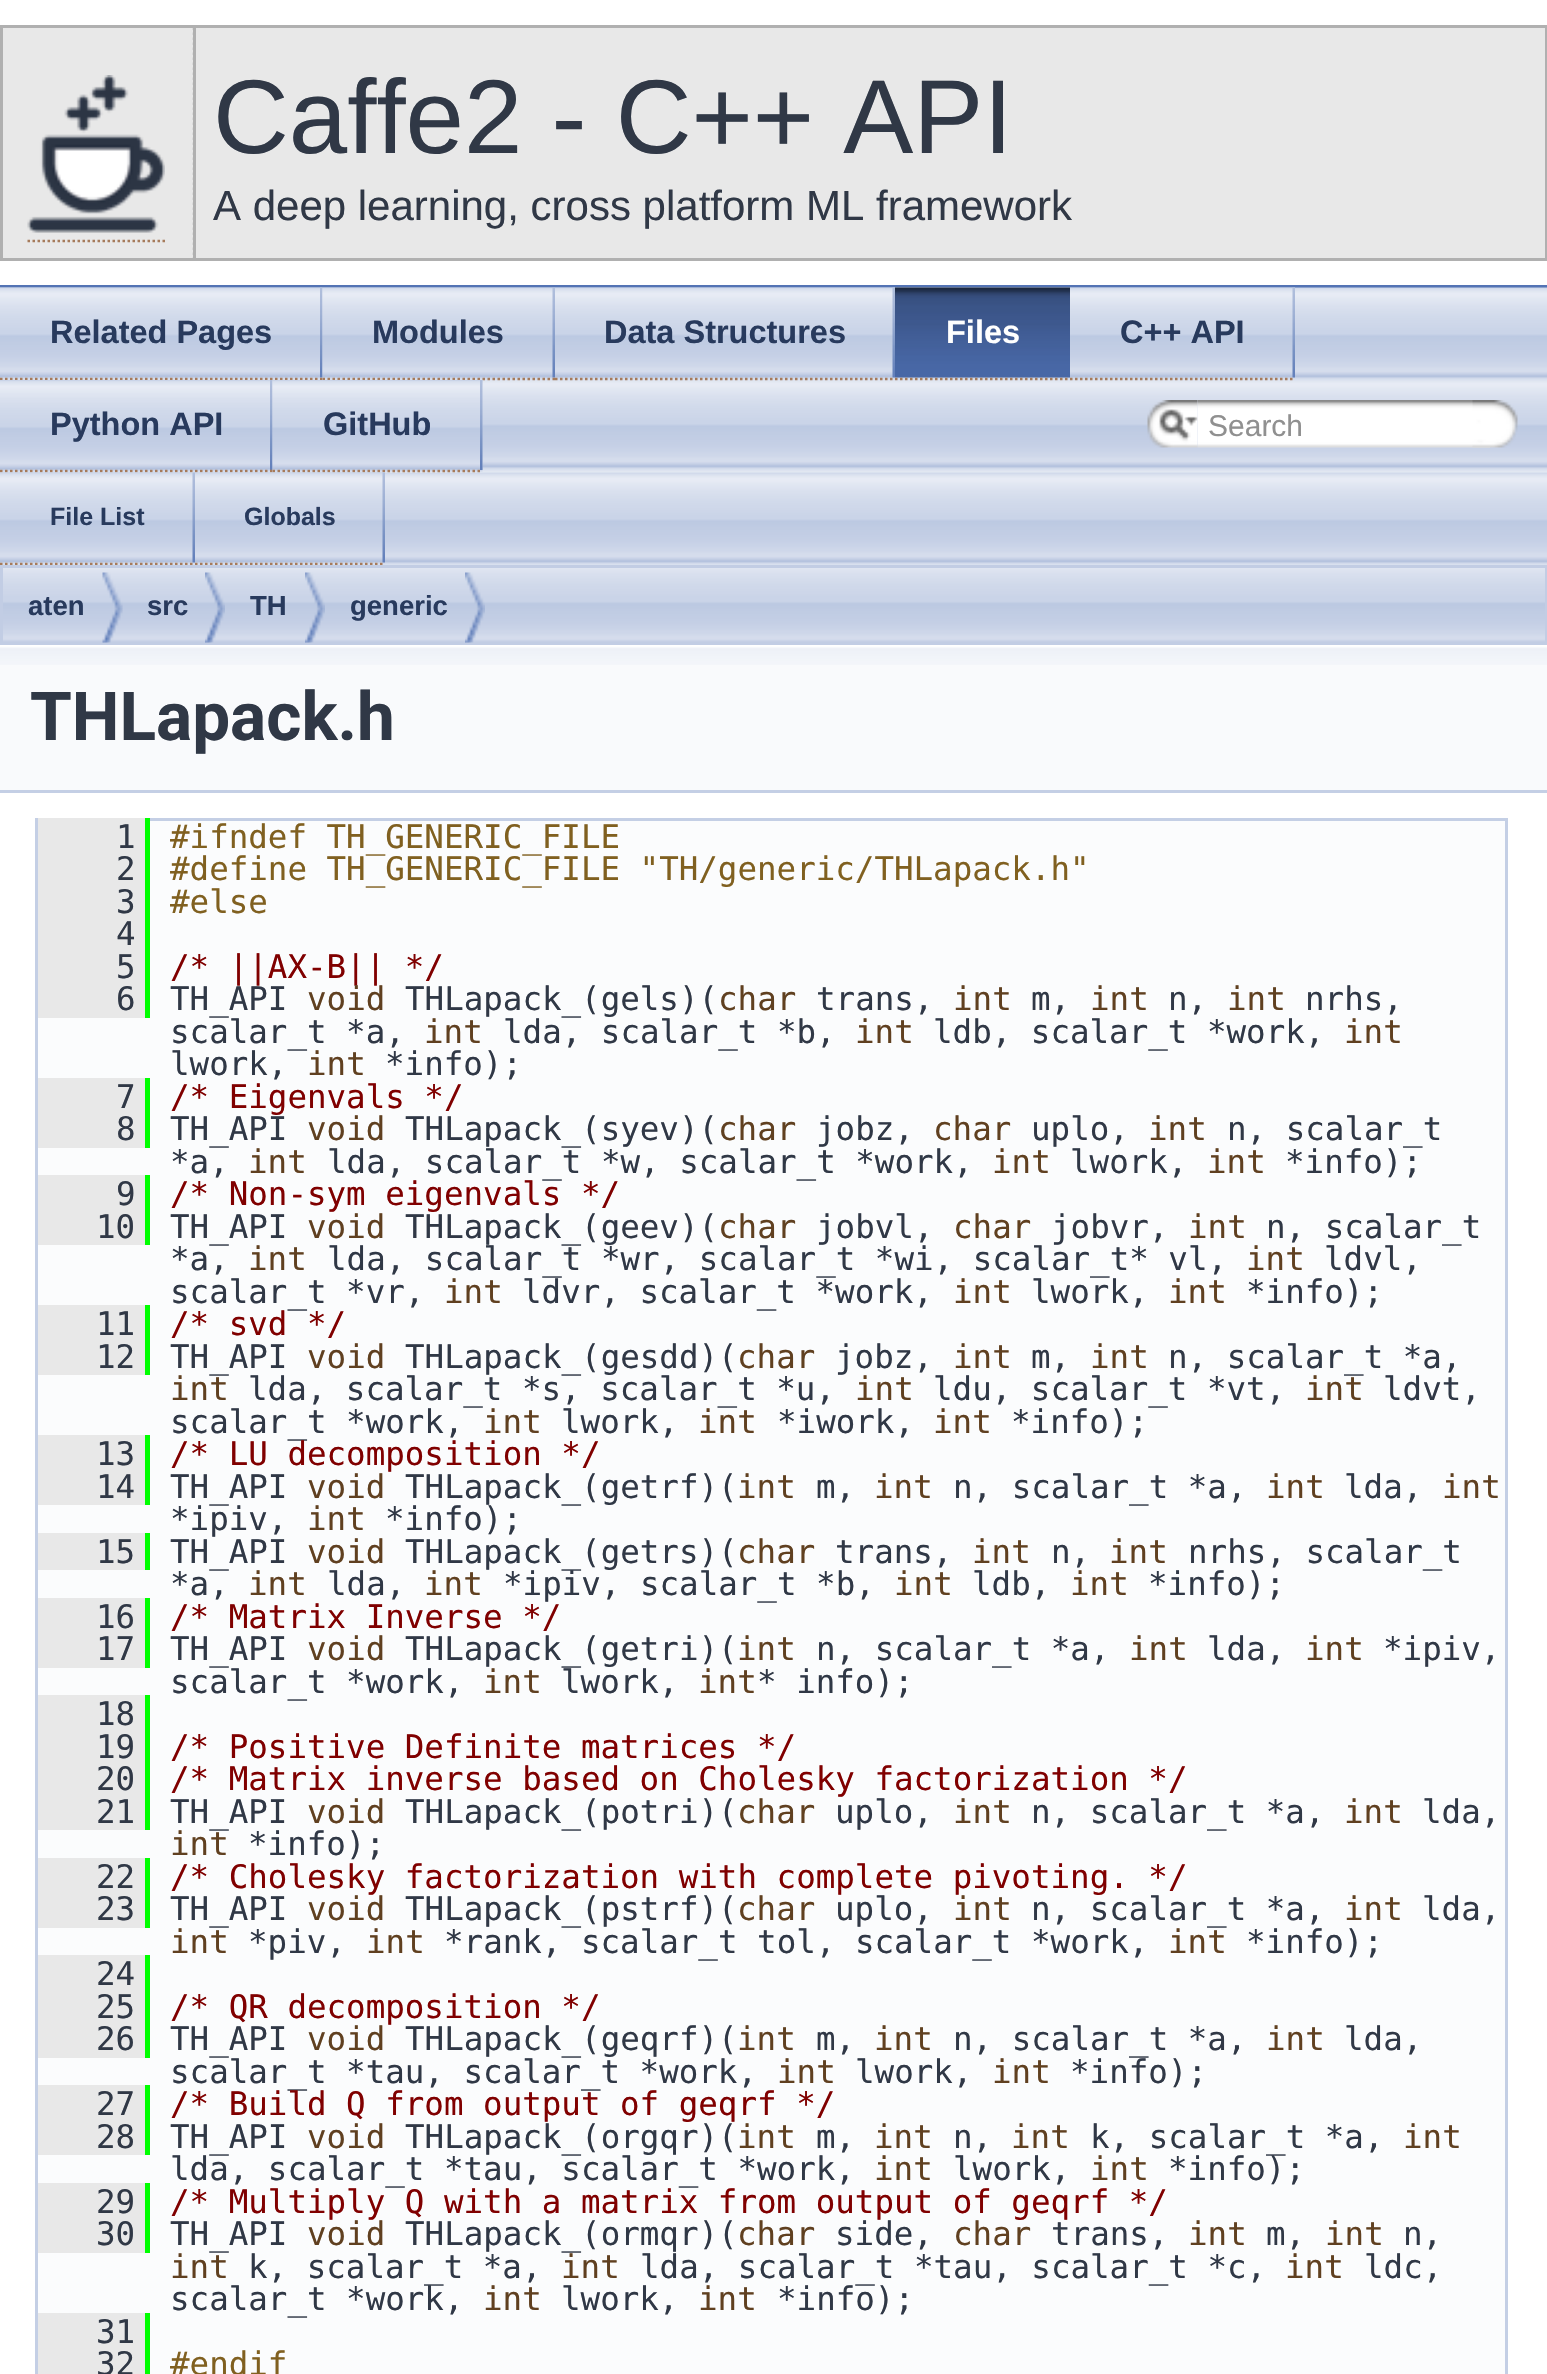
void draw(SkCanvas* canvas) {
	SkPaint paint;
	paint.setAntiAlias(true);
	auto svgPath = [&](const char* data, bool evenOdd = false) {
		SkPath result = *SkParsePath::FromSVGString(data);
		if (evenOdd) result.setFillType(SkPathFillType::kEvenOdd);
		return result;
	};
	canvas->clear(0xffffffff);
	paint.setColor(0xff5373b4);
	canvas->drawRect(SkRect::MakeXYWH(0, 285, 1547, 3), paint);
	paint.setColor(0xffe8e8e8);
	canvas->drawRect(SkRect::MakeXYWH(3, 28, 1542, 230), paint);
	paint.setStroke(true);
	paint.setStrokeWidth(2.5);
	paint.setColor(0xffb0b0b0);
	paint.setPathEffect(SkDashPathEffect::Make({{2.5f, 2.5f}}, 0));
	canvas->drawPath(svgPath("M194 27.5V260"), paint);
	paint.setPathEffect(nullptr);
	paint.setStroke(false);
	canvas->drawRect(SkRect::MakeXYWH(0, 25, 1547, 3), paint);
	canvas->drawRect(SkRect::MakeXYWH(1545, 25, 2, 235), paint);
	canvas->drawRect(SkRect::MakeXYWH(0, 258, 1547, 3), paint);
	canvas->drawRect(SkRect::MakeXYWH(0, 25, 3, 235), paint);
	canvas->drawRect(SkRect::MakeXYWH(193, 25, 3, 235), paint);
	canvas->drawImageRect(SkImages::DeferredFromEncodedData(SkData::MakeFromFileName("img1.png")), SkRect::MakeXYWH(27, 75, 138, 158), SkSamplingOptions());
	paint.setStroke(true);
	paint.setColor(0xffa67b5b);
	paint.setPathEffect(SkDashPathEffect::Make({{2.5f, 2.5f}}, 0));
	canvas->drawPath(svgPath("M27.5 241H165"), paint);
	paint.setPathEffect(nullptr);
	SkFont f1(fontMgr->matchFamilyStyle("Liberation Sans", SkFontStyle::Normal()), 105);
	f1.setSubpixel(true);
	paint.setStroke(false);
	paint.setColor(0xff303846);
	canvas->drawString("Caffe2 - C++ API", 213, 153, f1, paint);
	SkFont f2(fontMgr->matchFamilyStyle("Liberation Sans", SkFontStyle::Normal()), 42);
	f2.setSubpixel(true);
	canvas->drawString("A deep learning, cross platform ML framework", 213, 220, f2, paint);
	canvas->drawImageRect(SkImages::DeferredFromEncodedData(SkData::MakeFromFileName("img2.png")), SkRect::MakeXYWH(0, 287, 1547, 186), SkSamplingOptions());
	canvas->drawImageRect(SkImages::DeferredFromEncodedData(SkData::MakeFromFileName("img3.png")), SkRect::MakeXYWH(0, 287, 323, 1), SkSamplingOptions());
	canvas->drawImageRect(SkImages::DeferredFromEncodedData(SkData::MakeFromFileName("img4.png")), SkRect::MakeXYWH(320, 287, 3, 91), SkSamplingOptions());
	paint.setStroke(true);
	paint.setColor(0xffa67b5b);
	paint.setPathEffect(SkDashPathEffect::Make({{2.5f, 2.5f}}, 0));
	canvas->drawPath(svgPath("M0 379H322.5"), paint);
	paint.setPathEffect(nullptr);
	SkFont f3(fontMgr->matchFamilyStyle("Liberation Sans", SkFontStyle::Bold()), 32.5);
	f3.setSubpixel(true);
	paint.setStroke(false);
	paint.setColor(0xff283a5d);
	canvas->drawString("Related Pages", 50, 343, f3, paint);
	canvas->drawImageRect(SkImages::DeferredFromEncodedData(SkData::MakeFromFileName("img5.png")), SkRect::MakeXYWH(322, 287, 233, 93), SkSamplingOptions());
	canvas->drawImageRect(SkImages::DeferredFromEncodedData(SkData::MakeFromFileName("img6.png")), SkRect::MakeXYWH(552, 288, 3, 90), SkSamplingOptions());
	paint.setStroke(true);
	paint.setColor(0xffa67b5b);
	paint.setPathEffect(SkDashPathEffect::Make({{2.5f, 2.5f}}, 0));
	canvas->drawPath(svgPath("M322.5 379H555"), paint);
	paint.setPathEffect(nullptr);
	paint.setStroke(false);
	paint.setColor(0xff283a5d);
	canvas->drawString("Modules", 372, 343, f3, paint);
	paint.setColor(0xffa7b8d9);
	canvas->drawRect(SkRect::MakeXYWH(555, 287, 740, 1), paint);
	canvas->drawImageRect(SkImages::DeferredFromEncodedData(SkData::MakeFromFileName("img7.png")), SkRect::MakeXYWH(892, 287, 3, 91), SkSamplingOptions());
	paint.setStroke(true);
	paint.setColor(0xffa67b5b);
	paint.setPathEffect(SkDashPathEffect::Make({{2.5f, 2.5f}}, 0));
	canvas->drawPath(svgPath("M555 379H895"), paint);
	paint.setPathEffect(nullptr);
	paint.setStroke(false);
	paint.setColor(0xff283a5d);
	canvas->drawString("Data Structures", 604, 343, f3, paint);
	canvas->drawImageRect(SkImages::DeferredFromEncodedData(SkData::MakeFromFileName("img8.png")), SkRect::MakeXYWH(895, 287, 175, 91), SkSamplingOptions());
	paint.setStroke(true);
	paint.setColor(0xffa67b5b);
	paint.setPathEffect(SkDashPathEffect::Make({{2.5f, 2.5f}}, 0));
	canvas->drawPath(svgPath("M895 379H1070"), paint);
	paint.setPathEffect(nullptr);
	paint.setStroke(false);
	paint.setColor(0xffffffff);
	canvas->drawString("Files", 946, 343, f3, paint);
	canvas->drawImageRect(SkImages::DeferredFromEncodedData(SkData::MakeFromFileName("img9.png")), SkRect::MakeXYWH(1292, 287, 3, 91), SkSamplingOptions());
	paint.setStroke(true);
	paint.setColor(0xffa67b5b);
	paint.setPathEffect(SkDashPathEffect::Make({{2.5f, 2.5f}}, 0));
	canvas->drawPath(svgPath("M1070 379H1295"), paint);
	paint.setPathEffect(nullptr);
	paint.setStroke(false);
	paint.setColor(0xff283a5d);
	canvas->drawString("C++ API", 1120, 343, f3, paint);
	canvas->drawImageRect(SkImages::DeferredFromEncodedData(SkData::MakeFromFileName("img10.png")), SkRect::MakeXYWH(0, 380, 273, 92), SkSamplingOptions());
	canvas->drawImageRect(SkImages::DeferredFromEncodedData(SkData::MakeFromFileName("img11.png")), SkRect::MakeXYWH(270, 380, 3, 90), SkSamplingOptions());
	canvas->drawImageRect(SkImages::DeferredFromEncodedData(SkData::MakeFromFileName("img17.png")), SkRect::MakeXYWH(0, 472, 1547, 93), SkSamplingOptions());
	paint.setStroke(true);
	paint.setColor(0xffa67b5b);
	paint.setPathEffect(SkDashPathEffect::Make({{2.5f, 2.5f}}, 0));
	canvas->drawPath(svgPath("M0 471H272.5"), paint);
	paint.setPathEffect(nullptr);
	paint.setStroke(false);
	paint.setColor(0xff283a5d);
	canvas->drawString("Python API", 50, 435, f3, paint);
	canvas->drawImageRect(SkImages::DeferredFromEncodedData(SkData::MakeFromFileName("img12.png")), SkRect::MakeXYWH(272, 380, 211, 93), SkSamplingOptions());
	canvas->drawImageRect(SkImages::DeferredFromEncodedData(SkData::MakeFromFileName("img11.png")), SkRect::MakeXYWH(480, 380, 3, 90), SkSamplingOptions());
	paint.setStroke(true);
	paint.setColor(0xffa67b5b);
	paint.setPathEffect(SkDashPathEffect::Make({{2.5f, 2.5f}}, 0));
	canvas->drawPath(svgPath("M272.5 471H482.5"), paint);
	paint.setPathEffect(nullptr);
	paint.setStroke(false);
	paint.setColor(0xff283a5d);
	canvas->drawString("GitHub", 323, 435, f3, paint);
	canvas->drawImageRect(SkImages::DeferredFromEncodedData(SkData::MakeFromFileName("img13.png")), SkRect::MakeXYWH(1147, 400, 51, 48), SkSamplingOptions());
	canvas->drawImageRect(SkImages::DeferredFromEncodedData(SkData::MakeFromFileName("img14.png")), SkRect::MakeXYWH(1159, 409, 39, 32), SkSamplingOptions());
	canvas->drawImageRect(SkImages::DeferredFromEncodedData(SkData::MakeFromFileName("img15.png")), SkRect::MakeXYWH(1197, 400, 293, 48), SkSamplingOptions());
	SkFont f4(fontMgr->matchFamilyStyle("Liberation Sans", SkFontStyle::Normal()), 30);
	f4.setSubpixel(true);
	paint.setColor(0xff909090);
	canvas->drawString("Search", 1208, 436, f4, paint);
	canvas->drawImageRect(SkImages::DeferredFromEncodedData(SkData::MakeFromFileName("img16.png")), SkRect::MakeXYWH(1472, 400, 46, 48), SkSamplingOptions());
	paint.setColor(0x80c3cfe5);
	canvas->drawRect(SkRect::MakeXYWH(0, 472, 195, 1), paint);
	canvas->drawImageRect(SkImages::DeferredFromEncodedData(SkData::MakeFromFileName("img18.png")), SkRect::MakeXYWH(192, 472, 3, 91), SkSamplingOptions());
	paint.setStroke(true);
	paint.setColor(0xffa67b5b);
	paint.setPathEffect(SkDashPathEffect::Make({{2.5f, 2.5f}}, 0));
	canvas->drawPath(svgPath("M0 564H195"), paint);
	paint.setPathEffect(nullptr);
	SkFont f5(fontMgr->matchFamilyStyle("Liberation Sans", SkFontStyle::Bold()), 25);
	f5.setSubpixel(true);
	paint.setStroke(false);
	paint.setColor(0xff283a5d);
	canvas->drawString("File List", 50, 525, f5, paint);
	paint.setColor(0x80c3cfe5);
	canvas->drawRect(SkRect::MakeXYWH(195, 472, 190, 1), paint);
	canvas->drawImageRect(SkImages::DeferredFromEncodedData(SkData::MakeFromFileName("img19.png")), SkRect::MakeXYWH(382, 472, 3, 91), SkSamplingOptions());
	paint.setStroke(true);
	paint.setColor(0xffa67b5b);
	paint.setPathEffect(SkDashPathEffect::Make({{2.5f, 2.5f}}, 0));
	canvas->drawPath(svgPath("M195 564H385"), paint);
	paint.setPathEffect(nullptr);
	paint.setStroke(false);
	paint.setColor(0xff283a5d);
	canvas->drawString("Globals", 244, 525, f5, paint);
	canvas->drawImageRect(SkImages::DeferredFromEncodedData(SkData::MakeFromFileName("img20.png")), SkRect::MakeXYWH(3, 568, 1542, 74), SkSamplingOptions());
	paint.setStroke(true);
	paint.setStrokeWidth(3);
	paint.setColor(0xffc2cde4);
	canvas->drawRect(SkRect::MakeXYWH(1.5, 566.5, 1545, 77), paint);
	canvas->drawImageRect(SkImages::DeferredFromEncodedData(SkData::MakeFromFileName("img21.png")), SkRect::MakeXYWH(102, 572, 21, 71), SkSamplingOptions());
	SkFont f6(fontMgr->matchFamilyStyle("Liberation Sans", SkFontStyle::Bold()), 27.5);
	f6.setSubpixel(true);
	paint.setStroke(false);
	paint.setColor(0xff283a5d);
	canvas->drawString("aten", 28, 615, f6, paint);
	canvas->drawImageRect(SkImages::DeferredFromEncodedData(SkData::MakeFromFileName("img22.png")), SkRect::MakeXYWH(205, 572, 20, 71), SkSamplingOptions());
	canvas->drawString("src", 147, 615, f6, paint);
	canvas->drawImageRect(SkImages::DeferredFromEncodedData(SkData::MakeFromFileName("img22.png")), SkRect::MakeXYWH(305, 572, 20, 71), SkSamplingOptions());
	canvas->drawString("TH", 250, 615, f6, paint);
	canvas->drawImageRect(SkImages::DeferredFromEncodedData(SkData::MakeFromFileName("img23.png")), SkRect::MakeXYWH(465, 572, 20, 71), SkSamplingOptions());
	canvas->drawString("generic", 350, 615, f6, paint);
	paint.setColor(0xfff9fafc);
	canvas->drawRect(SkRect::MakeXYWH(0, 665, 1547, 125), paint);
	canvas->drawImageRect(SkImages::DeferredFromEncodedData(SkData::MakeFromFileName("img24.png")), SkRect::MakeXYWH(0, 645, 1547, 20), SkSamplingOptions());
	paint.setColor(0xffc4cfe5);
	canvas->drawRect(SkRect::MakeXYWH(0, 790, 1547, 3), paint);
	SkFont f7(fontMgr->matchFamilyStyle("Roboto", SkFontStyle::Bold()), 67.5);
	f7.setSubpixel(true);
	paint.setColor(0xff303846);
	canvas->drawString("THLapack.h", 30, 740, f7, paint);
	paint.setColor(0xfffbfcfd);
	canvas->drawRect(SkRect::MakeXYWH(36.5, 819.5, 1470, 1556), paint);
	paint.setStroke(true);
	paint.setColor(0xffc4cfe5);
	canvas->drawRect(SkRect::MakeXYWH(36.5, 819.5, 1470, 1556), paint);
	paint.setStroke(false);
	paint.setColor(0xffe8e8e8);
	canvas->drawRect(SkRect::MakeXYWH(38, 818, 107, 200), paint);
	SkFont f8(fontMgr->matchFamilyStyle("DejaVu Sans Mono", SkFontStyle::Normal()), 32.5);
	f8.setSubpixel(true);
	paint.setColor(0xff303846);
	canvas->drawString("1", 116, 848, f8, paint);
	paint.setColor(0xff00ff00);
	canvas->drawRect(SkRect::MakeXYWH(145, 818, 5, 200), paint);
	paint.setColor(0xff806020);
	canvas->drawString("#ifndef TH_GENERIC_FILE", 170, 848, f8, paint);
	paint.setColor(0xff303846);
	canvas->drawString("2", 116, 880, f8, paint);
	paint.setColor(0xff806020);
	canvas->drawString("#define TH_GENERIC_FILE \"TH/generic/THLapack.h\"", 170, 880, f8, paint);
	paint.setColor(0xff303846);
	canvas->drawString("3", 116, 913, f8, paint);
	paint.setColor(0xff806020);
	canvas->drawString("#else", 170, 913, f8, paint);
	paint.setColor(0xff303846);
	canvas->drawString("4", 116, 945, f8, paint);
	canvas->drawString("5", 116, 978, f8, paint);
	paint.setColor(0xff800000);
	canvas->drawString("/* ||AX-B|| */", 170, 978, f8, paint);
	paint.setColor(0xff303846);
	canvas->drawString("6", 116, 1010, f8, paint);
	canvas->drawString("TH_API", 170, 1010, f8, paint);
	paint.setColor(0xff604020);
	canvas->drawString("void", 307, 1010, f8, paint);
	paint.setColor(0xff303846);
	canvas->drawString("THLapack_(gels)(", 405, 1010, f8, paint);
	paint.setColor(0xff604020);
	canvas->drawString("char", 718, 1010, f8, paint);
	paint.setColor(0xff303846);
	canvas->drawString("trans,", 816, 1010, f8, paint);
	paint.setColor(0xff604020);
	canvas->drawString("int", 953, 1010, f8, paint);
	paint.setColor(0xff303846);
	canvas->drawString("m,", 1031, 1010, f8, paint);
	paint.setColor(0xff604020);
	canvas->drawString("int", 1090, 1010, f8, paint);
	paint.setColor(0xff303846);
	canvas->drawString("n,", 1168, 1010, f8, paint);
	paint.setColor(0xff604020);
	canvas->drawString("int", 1227, 1010, f8, paint);
	paint.setColor(0xff303846);
	canvas->drawString("nrhs,", 1305, 1010, f8, paint);
	canvas->drawString("scalar_t *a,", 170, 1043, f8, paint);
	paint.setColor(0xff604020);
	canvas->drawString("int", 424, 1043, f8, paint);
	paint.setColor(0xff303846);
	canvas->drawString("lda, scalar_t *b,", 503, 1043, f8, paint);
	paint.setColor(0xff604020);
	canvas->drawString("int", 855, 1043, f8, paint);
	paint.setColor(0xff303846);
	canvas->drawString("ldb, scalar_t *work,", 933, 1043, f8, paint);
	paint.setColor(0xff604020);
	canvas->drawString("int", 1344, 1043, f8, paint);
	paint.setColor(0xff303846);
	canvas->drawString("lwork,", 170, 1075, f8, paint);
	paint.setColor(0xff604020);
	canvas->drawString("int", 307, 1075, f8, paint);
	paint.setColor(0xff303846);
	canvas->drawString("*info);", 385, 1075, f8, paint);
	paint.setColor(0xffe8e8e8);
	canvas->drawRect(SkRect::MakeXYWH(38, 1078, 107, 70), paint);
	paint.setColor(0xff303846);
	canvas->drawString("7", 116, 1108, f8, paint);
	paint.setColor(0xff00ff00);
	canvas->drawRect(SkRect::MakeXYWH(145, 1078, 5, 70), paint);
	paint.setColor(0xff800000);
	canvas->drawString("/* Eigenvals */", 170, 1108, f8, paint);
	paint.setColor(0xff303846);
	canvas->drawString("8", 116, 1140, f8, paint);
	canvas->drawString("TH_API", 170, 1140, f8, paint);
	paint.setColor(0xff604020);
	canvas->drawString("void", 307, 1140, f8, paint);
	paint.setColor(0xff303846);
	canvas->drawString("THLapack_(syev)(", 405, 1140, f8, paint);
	paint.setColor(0xff604020);
	canvas->drawString("char", 718, 1140, f8, paint);
	paint.setColor(0xff303846);
	canvas->drawString("jobz,", 816, 1140, f8, paint);
	paint.setColor(0xff604020);
	canvas->drawString("char", 933, 1140, f8, paint);
	paint.setColor(0xff303846);
	canvas->drawString("uplo,", 1031, 1140, f8, paint);
	paint.setColor(0xff604020);
	canvas->drawString("int", 1148, 1140, f8, paint);
	paint.setColor(0xff303846);
	canvas->drawString("n, scalar_t", 1227, 1140, f8, paint);
	canvas->drawString("*a,", 170, 1173, f8, paint);
	paint.setColor(0xff604020);
	canvas->drawString("int", 248, 1173, f8, paint);
	paint.setColor(0xff303846);
	canvas->drawString("lda, scalar_t *w, scalar_t *work,", 327, 1173, f8, paint);
	paint.setColor(0xff604020);
	canvas->drawString("int", 992, 1173, f8, paint);
	paint.setColor(0xff303846);
	canvas->drawString("lwork,", 1070, 1173, f8, paint);
	paint.setColor(0xff604020);
	canvas->drawString("int", 1207, 1173, f8, paint);
	paint.setColor(0xff303846);
	canvas->drawString("*info);", 1285, 1173, f8, paint);
	paint.setColor(0xffe8e8e8);
	canvas->drawRect(SkRect::MakeXYWH(38, 1175, 107, 70), paint);
	paint.setColor(0xff303846);
	canvas->drawString("9", 116, 1205, f8, paint);
	paint.setColor(0xff00ff00);
	canvas->drawRect(SkRect::MakeXYWH(145, 1175, 5, 70), paint);
	paint.setColor(0xff800000);
	canvas->drawString("/* Non-sym eigenvals */", 170, 1205, f8, paint);
	paint.setColor(0xff303846);
	canvas->drawString("10", 96, 1238, f8, paint);
	canvas->drawString("TH_API", 170, 1238, f8, paint);
	paint.setColor(0xff604020);
	canvas->drawString("void", 307, 1238, f8, paint);
	paint.setColor(0xff303846);
	canvas->drawString("THLapack_(geev)(", 405, 1238, f8, paint);
	paint.setColor(0xff604020);
	canvas->drawString("char", 718, 1238, f8, paint);
	paint.setColor(0xff303846);
	canvas->drawString("jobvl,", 816, 1238, f8, paint);
	paint.setColor(0xff604020);
	canvas->drawString("char", 953, 1238, f8, paint);
	paint.setColor(0xff303846);
	canvas->drawString("jobvr,", 1051, 1238, f8, paint);
	paint.setColor(0xff604020);
	canvas->drawString("int", 1188, 1238, f8, paint);
	paint.setColor(0xff303846);
	canvas->drawString("n, scalar_t", 1266, 1238, f8, paint);
	canvas->drawString("*a,", 170, 1270, f8, paint);
	paint.setColor(0xff604020);
	canvas->drawString("int", 248, 1270, f8, paint);
	paint.setColor(0xff303846);
	canvas->drawString("lda, scalar_t *wr, scalar_t *wi, scalar_t* vl,", 327, 1270, f8, paint);
	paint.setColor(0xff604020);
	canvas->drawString("int", 1246, 1270, f8, paint);
	paint.setColor(0xff303846);
	canvas->drawString("ldvl,", 1324, 1270, f8, paint);
	canvas->drawString("scalar_t *vr,", 170, 1303, f8, paint);
	paint.setColor(0xff604020);
	canvas->drawString("int", 444, 1303, f8, paint);
	paint.setColor(0xff303846);
	canvas->drawString("ldvr, scalar_t *work,", 522, 1303, f8, paint);
	paint.setColor(0xff604020);
	canvas->drawString("int", 953, 1303, f8, paint);
	paint.setColor(0xff303846);
	canvas->drawString("lwork,", 1031, 1303, f8, paint);
	paint.setColor(0xff604020);
	canvas->drawString("int", 1168, 1303, f8, paint);
	paint.setColor(0xff303846);
	canvas->drawString("*info);", 1246, 1303, f8, paint);
	paint.setColor(0xffe8e8e8);
	canvas->drawRect(SkRect::MakeXYWH(38, 1305, 107, 70), paint);
	paint.setColor(0xff303846);
	canvas->drawString("11", 96, 1335, f8, paint);
	paint.setColor(0xff00ff00);
	canvas->drawRect(SkRect::MakeXYWH(145, 1305, 5, 70), paint);
	paint.setColor(0xff800000);
	canvas->drawString("/* svd */", 170, 1335, f8, paint);
	paint.setColor(0xff303846);
	canvas->drawString("12", 96, 1368, f8, paint);
	canvas->drawString("TH_API", 170, 1368, f8, paint);
	paint.setColor(0xff604020);
	canvas->drawString("void", 307, 1368, f8, paint);
	paint.setColor(0xff303846);
	canvas->drawString("THLapack_(gesdd)(", 405, 1368, f8, paint);
	paint.setColor(0xff604020);
	canvas->drawString("char", 737, 1368, f8, paint);
	paint.setColor(0xff303846);
	canvas->drawString("jobz,", 835, 1368, f8, paint);
	paint.setColor(0xff604020);
	canvas->drawString("int", 953, 1368, f8, paint);
	paint.setColor(0xff303846);
	canvas->drawString("m,", 1031, 1368, f8, paint);
	paint.setColor(0xff604020);
	canvas->drawString("int", 1090, 1368, f8, paint);
	paint.setColor(0xff303846);
	canvas->drawString("n, scalar_t *a,", 1168, 1368, f8, paint);
	paint.setColor(0xff604020);
	canvas->drawString("int", 170, 1400, f8, paint);
	paint.setColor(0xff303846);
	canvas->drawString("lda, scalar_t *s, scalar_t *u,", 248, 1400, f8, paint);
	paint.setColor(0xff604020);
	canvas->drawString("int", 855, 1400, f8, paint);
	paint.setColor(0xff303846);
	canvas->drawString("ldu, scalar_t *vt,", 933, 1400, f8, paint);
	paint.setColor(0xff604020);
	canvas->drawString("int", 1305, 1400, f8, paint);
	paint.setColor(0xff303846);
	canvas->drawString("ldvt,", 1383, 1400, f8, paint);
	canvas->drawString("scalar_t *work,", 170, 1433, f8, paint);
	paint.setColor(0xff604020);
	canvas->drawString("int", 483, 1433, f8, paint);
	paint.setColor(0xff303846);
	canvas->drawString("lwork,", 561, 1433, f8, paint);
	paint.setColor(0xff604020);
	canvas->drawString("int", 698, 1433, f8, paint);
	paint.setColor(0xff303846);
	canvas->drawString("*iwork,", 777, 1433, f8, paint);
	paint.setColor(0xff604020);
	canvas->drawString("int", 933, 1433, f8, paint);
	paint.setColor(0xff303846);
	canvas->drawString("*info);", 1011, 1433, f8, paint);
	paint.setColor(0xffe8e8e8);
	canvas->drawRect(SkRect::MakeXYWH(38, 1435, 107, 70), paint);
	paint.setColor(0xff303846);
	canvas->drawString("13", 96, 1465, f8, paint);
	paint.setColor(0xff00ff00);
	canvas->drawRect(SkRect::MakeXYWH(145, 1435, 5, 70), paint);
	paint.setColor(0xff800000);
	canvas->drawString("/* LU decomposition */", 170, 1465, f8, paint);
	paint.setColor(0xff303846);
	canvas->drawString("14", 96, 1498, f8, paint);
	canvas->drawString("TH_API", 170, 1498, f8, paint);
	paint.setColor(0xff604020);
	canvas->drawString("void", 307, 1498, f8, paint);
	paint.setColor(0xff303846);
	canvas->drawString("THLapack_(getrf)(", 405, 1498, f8, paint);
	paint.setColor(0xff604020);
	canvas->drawString("int", 737, 1498, f8, paint);
	paint.setColor(0xff303846);
	canvas->drawString("m,", 816, 1498, f8, paint);
	paint.setColor(0xff604020);
	canvas->drawString("int", 874, 1498, f8, paint);
	paint.setColor(0xff303846);
	canvas->drawString("n, scalar_t *a,", 953, 1498, f8, paint);
	paint.setColor(0xff604020);
	canvas->drawString("int", 1266, 1498, f8, paint);
	paint.setColor(0xff303846);
	canvas->drawString("lda,", 1344, 1498, f8, paint);
	paint.setColor(0xff604020);
	canvas->drawString("int", 1442, 1498, f8, paint);
	paint.setColor(0xff303846);
	canvas->drawString("*ipiv,", 170, 1530, f8, paint);
	paint.setColor(0xff604020);
	canvas->drawString("int", 307, 1530, f8, paint);
	paint.setColor(0xff303846);
	canvas->drawString("*info);", 385, 1530, f8, paint);
	paint.setColor(0xffe8e8e8);
	canvas->drawRect(SkRect::MakeXYWH(38, 1533, 107, 37), paint);
	paint.setColor(0xff303846);
	canvas->drawString("15", 96, 1563, f8, paint);
	paint.setColor(0xff00ff00);
	canvas->drawRect(SkRect::MakeXYWH(145, 1533, 5, 37), paint);
	paint.setColor(0xff303846);
	canvas->drawString("TH_API", 170, 1563, f8, paint);
	paint.setColor(0xff604020);
	canvas->drawString("void", 307, 1563, f8, paint);
	paint.setColor(0xff303846);
	canvas->drawString("THLapack_(getrs)(", 405, 1563, f8, paint);
	paint.setColor(0xff604020);
	canvas->drawString("char", 737, 1563, f8, paint);
	paint.setColor(0xff303846);
	canvas->drawString("trans,", 835, 1563, f8, paint);
	paint.setColor(0xff604020);
	canvas->drawString("int", 972, 1563, f8, paint);
	paint.setColor(0xff303846);
	canvas->drawString("n,", 1051, 1563, f8, paint);
	paint.setColor(0xff604020);
	canvas->drawString("int", 1109, 1563, f8, paint);
	paint.setColor(0xff303846);
	canvas->drawString("nrhs, scalar_t", 1188, 1563, f8, paint);
	canvas->drawString("*a,", 170, 1595, f8, paint);
	paint.setColor(0xff604020);
	canvas->drawString("int", 248, 1595, f8, paint);
	paint.setColor(0xff303846);
	canvas->drawString("lda,", 327, 1595, f8, paint);
	paint.setColor(0xff604020);
	canvas->drawString("int", 424, 1595, f8, paint);
	paint.setColor(0xff303846);
	canvas->drawString("*ipiv, scalar_t *b,", 503, 1595, f8, paint);
	paint.setColor(0xff604020);
	canvas->drawString("int", 894, 1595, f8, paint);
	paint.setColor(0xff303846);
	canvas->drawString("ldb,", 972, 1595, f8, paint);
	paint.setColor(0xff604020);
	canvas->drawString("int", 1070, 1595, f8, paint);
	paint.setColor(0xff303846);
	canvas->drawString("*info);", 1148, 1595, f8, paint);
	paint.setColor(0xffe8e8e8);
	canvas->drawRect(SkRect::MakeXYWH(38, 1598, 107, 70), paint);
	paint.setColor(0xff303846);
	canvas->drawString("16", 96, 1628, f8, paint);
	paint.setColor(0xff00ff00);
	canvas->drawRect(SkRect::MakeXYWH(145, 1598, 5, 70), paint);
	paint.setColor(0xff800000);
	canvas->drawString("/* Matrix Inverse */", 170, 1628, f8, paint);
	paint.setColor(0xff303846);
	canvas->drawString("17", 96, 1660, f8, paint);
	canvas->drawString("TH_API", 170, 1660, f8, paint);
	paint.setColor(0xff604020);
	canvas->drawString("void", 307, 1660, f8, paint);
	paint.setColor(0xff303846);
	canvas->drawString("THLapack_(getri)(", 405, 1660, f8, paint);
	paint.setColor(0xff604020);
	canvas->drawString("int", 737, 1660, f8, paint);
	paint.setColor(0xff303846);
	canvas->drawString("n, scalar_t *a,", 816, 1660, f8, paint);
	paint.setColor(0xff604020);
	canvas->drawString("int", 1129, 1660, f8, paint);
	paint.setColor(0xff303846);
	canvas->drawString("lda,", 1207, 1660, f8, paint);
	paint.setColor(0xff604020);
	canvas->drawString("int", 1305, 1660, f8, paint);
	paint.setColor(0xff303846);
	canvas->drawString("*ipiv,", 1383, 1660, f8, paint);
	canvas->drawString("scalar_t *work,", 170, 1693, f8, paint);
	paint.setColor(0xff604020);
	canvas->drawString("int", 483, 1693, f8, paint);
	paint.setColor(0xff303846);
	canvas->drawString("lwork,", 561, 1693, f8, paint);
	paint.setColor(0xff604020);
	canvas->drawString("int", 698, 1693, f8, paint);
	paint.setColor(0xff303846);
	canvas->drawString("* info);", 757, 1693, f8, paint);
	paint.setColor(0xffe8e8e8);
	canvas->drawRect(SkRect::MakeXYWH(38, 1695, 107, 135), paint);
	paint.setColor(0xff303846);
	canvas->drawString("18", 96, 1725, f8, paint);
	paint.setColor(0xff00ff00);
	canvas->drawRect(SkRect::MakeXYWH(145, 1695, 5, 135), paint);
	paint.setColor(0xff303846);
	canvas->drawString("19", 96, 1758, f8, paint);
	paint.setColor(0xff800000);
	canvas->drawString("/* Positive Definite matrices */", 170, 1758, f8, paint);
	paint.setColor(0xff303846);
	canvas->drawString("20", 96, 1790, f8, paint);
	paint.setColor(0xff800000);
	canvas->drawString("/* Matrix inverse based on Cholesky factorization */", 170, 1790, f8, paint);
	paint.setColor(0xff303846);
	canvas->drawString("21", 96, 1823, f8, paint);
	canvas->drawString("TH_API", 170, 1823, f8, paint);
	paint.setColor(0xff604020);
	canvas->drawString("void", 307, 1823, f8, paint);
	paint.setColor(0xff303846);
	canvas->drawString("THLapack_(potri)(", 405, 1823, f8, paint);
	paint.setColor(0xff604020);
	canvas->drawString("char", 737, 1823, f8, paint);
	paint.setColor(0xff303846);
	canvas->drawString("uplo,", 835, 1823, f8, paint);
	paint.setColor(0xff604020);
	canvas->drawString("int", 953, 1823, f8, paint);
	paint.setColor(0xff303846);
	canvas->drawString("n, scalar_t *a,", 1031, 1823, f8, paint);
	paint.setColor(0xff604020);
	canvas->drawString("int", 1344, 1823, f8, paint);
	paint.setColor(0xff303846);
	canvas->drawString("lda,", 1422, 1823, f8, paint);
	paint.setColor(0xff604020);
	canvas->drawString("int", 170, 1855, f8, paint);
	paint.setColor(0xff303846);
	canvas->drawString("*info);", 248, 1855, f8, paint);
	paint.setColor(0xffe8e8e8);
	canvas->drawRect(SkRect::MakeXYWH(38, 1858, 107, 70), paint);
	paint.setColor(0xff303846);
	canvas->drawString("22", 96, 1888, f8, paint);
	paint.setColor(0xff00ff00);
	canvas->drawRect(SkRect::MakeXYWH(145, 1858, 5, 70), paint);
	paint.setColor(0xff800000);
	canvas->drawString("/* Cholesky factorization with complete pivoting. */", 170, 1888, f8, paint);
	paint.setColor(0xff303846);
	canvas->drawString("23", 96, 1920, f8, paint);
	canvas->drawString("TH_API", 170, 1920, f8, paint);
	paint.setColor(0xff604020);
	canvas->drawString("void", 307, 1920, f8, paint);
	paint.setColor(0xff303846);
	canvas->drawString("THLapack_(pstrf)(", 405, 1920, f8, paint);
	paint.setColor(0xff604020);
	canvas->drawString("char", 737, 1920, f8, paint);
	paint.setColor(0xff303846);
	canvas->drawString("uplo,", 835, 1920, f8, paint);
	paint.setColor(0xff604020);
	canvas->drawString("int", 953, 1920, f8, paint);
	paint.setColor(0xff303846);
	canvas->drawString("n, scalar_t *a,", 1031, 1920, f8, paint);
	paint.setColor(0xff604020);
	canvas->drawString("int", 1344, 1920, f8, paint);
	paint.setColor(0xff303846);
	canvas->drawString("lda,", 1422, 1920, f8, paint);
	paint.setColor(0xff604020);
	canvas->drawString("int", 170, 1953, f8, paint);
	paint.setColor(0xff303846);
	canvas->drawString("*piv,", 248, 1953, f8, paint);
	paint.setColor(0xff604020);
	canvas->drawString("int", 366, 1953, f8, paint);
	paint.setColor(0xff303846);
	canvas->drawString("*rank, scalar_t tol, scalar_t *work,", 444, 1953, f8, paint);
	paint.setColor(0xff604020);
	canvas->drawString("int", 1168, 1953, f8, paint);
	paint.setColor(0xff303846);
	canvas->drawString("*info);", 1246, 1953, f8, paint);
	paint.setColor(0xffe8e8e8);
	canvas->drawRect(SkRect::MakeXYWH(38, 1955, 107, 103), paint);
	paint.setColor(0xff303846);
	canvas->drawString("24", 96, 1985, f8, paint);
	paint.setColor(0xff00ff00);
	canvas->drawRect(SkRect::MakeXYWH(145, 1955, 5, 103), paint);
	paint.setColor(0xff303846);
	canvas->drawString("25", 96, 2018, f8, paint);
	paint.setColor(0xff800000);
	canvas->drawString("/* QR decomposition */", 170, 2018, f8, paint);
	paint.setColor(0xff303846);
	canvas->drawString("26", 96, 2050, f8, paint);
	canvas->drawString("TH_API", 170, 2050, f8, paint);
	paint.setColor(0xff604020);
	canvas->drawString("void", 307, 2050, f8, paint);
	paint.setColor(0xff303846);
	canvas->drawString("THLapack_(geqrf)(", 405, 2050, f8, paint);
	paint.setColor(0xff604020);
	canvas->drawString("int", 737, 2050, f8, paint);
	paint.setColor(0xff303846);
	canvas->drawString("m,", 816, 2050, f8, paint);
	paint.setColor(0xff604020);
	canvas->drawString("int", 874, 2050, f8, paint);
	paint.setColor(0xff303846);
	canvas->drawString("n, scalar_t *a,", 953, 2050, f8, paint);
	paint.setColor(0xff604020);
	canvas->drawString("int", 1266, 2050, f8, paint);
	paint.setColor(0xff303846);
	canvas->drawString("lda,", 1344, 2050, f8, paint);
	canvas->drawString("scalar_t *tau, scalar_t *work,", 170, 2083, f8, paint);
	paint.setColor(0xff604020);
	canvas->drawString("int", 777, 2083, f8, paint);
	paint.setColor(0xff303846);
	canvas->drawString("lwork,", 855, 2083, f8, paint);
	paint.setColor(0xff604020);
	canvas->drawString("int", 992, 2083, f8, paint);
	paint.setColor(0xff303846);
	canvas->drawString("*info);", 1070, 2083, f8, paint);
	paint.setColor(0xffe8e8e8);
	canvas->drawRect(SkRect::MakeXYWH(38, 2085, 107, 70), paint);
	paint.setColor(0xff303846);
	canvas->drawString("27", 96, 2115, f8, paint);
	paint.setColor(0xff00ff00);
	canvas->drawRect(SkRect::MakeXYWH(145, 2085, 5, 70), paint);
	paint.setColor(0xff800000);
	canvas->drawString("/* Build Q from output of geqrf */", 170, 2115, f8, paint);
	paint.setColor(0xff303846);
	canvas->drawString("28", 96, 2148, f8, paint);
	canvas->drawString("TH_API", 170, 2148, f8, paint);
	paint.setColor(0xff604020);
	canvas->drawString("void", 307, 2148, f8, paint);
	paint.setColor(0xff303846);
	canvas->drawString("THLapack_(orgqr)(", 405, 2148, f8, paint);
	paint.setColor(0xff604020);
	canvas->drawString("int", 737, 2148, f8, paint);
	paint.setColor(0xff303846);
	canvas->drawString("m,", 816, 2148, f8, paint);
	paint.setColor(0xff604020);
	canvas->drawString("int", 874, 2148, f8, paint);
	paint.setColor(0xff303846);
	canvas->drawString("n,", 953, 2148, f8, paint);
	paint.setColor(0xff604020);
	canvas->drawString("int", 1011, 2148, f8, paint);
	paint.setColor(0xff303846);
	canvas->drawString("k, scalar_t *a,", 1090, 2148, f8, paint);
	paint.setColor(0xff604020);
	canvas->drawString("int", 1403, 2148, f8, paint);
	paint.setColor(0xff303846);
	canvas->drawString("lda, scalar_t *tau, scalar_t *work,", 170, 2180, f8, paint);
	paint.setColor(0xff604020);
	canvas->drawString("int", 874, 2180, f8, paint);
	paint.setColor(0xff303846);
	canvas->drawString("lwork,", 953, 2180, f8, paint);
	paint.setColor(0xff604020);
	canvas->drawString("int", 1090, 2180, f8, paint);
	paint.setColor(0xff303846);
	canvas->drawString("*info);", 1168, 2180, f8, paint);
	paint.setColor(0xffe8e8e8);
	canvas->drawRect(SkRect::MakeXYWH(38, 2183, 107, 70), paint);
	paint.setColor(0xff303846);
	canvas->drawString("29", 96, 2213, f8, paint);
	paint.setColor(0xff00ff00);
	canvas->drawRect(SkRect::MakeXYWH(145, 2183, 5, 70), paint);
	paint.setColor(0xff800000);
	canvas->drawString("/* Multiply Q with a matrix from output of geqrf */", 170, 2213, f8, paint);
	paint.setColor(0xff303846);
	canvas->drawString("30", 96, 2245, f8, paint);
	canvas->drawString("TH_API", 170, 2245, f8, paint);
	paint.setColor(0xff604020);
	canvas->drawString("void", 307, 2245, f8, paint);
	paint.setColor(0xff303846);
	canvas->drawString("THLapack_(ormqr)(", 405, 2245, f8, paint);
	paint.setColor(0xff604020);
	canvas->drawString("char", 737, 2245, f8, paint);
	paint.setColor(0xff303846);
	canvas->drawString("side,", 835, 2245, f8, paint);
	paint.setColor(0xff604020);
	canvas->drawString("char", 953, 2245, f8, paint);
	paint.setColor(0xff303846);
	canvas->drawString("trans,", 1051, 2245, f8, paint);
	paint.setColor(0xff604020);
	canvas->drawString("int", 1188, 2245, f8, paint);
	paint.setColor(0xff303846);
	canvas->drawString("m,", 1266, 2245, f8, paint);
	paint.setColor(0xff604020);
	canvas->drawString("int", 1325, 2245, f8, paint);
	paint.setColor(0xff303846);
	canvas->drawString("n,", 1403, 2245, f8, paint);
	paint.setColor(0xff604020);
	canvas->drawString("int", 170, 2278, f8, paint);
	paint.setColor(0xff303846);
	canvas->drawString("k, scalar_t *a,", 248, 2278, f8, paint);
	paint.setColor(0xff604020);
	canvas->drawString("int", 561, 2278, f8, paint);
	paint.setColor(0xff303846);
	canvas->drawString("lda, scalar_t *tau, scalar_t *c,", 640, 2278, f8, paint);
	paint.setColor(0xff604020);
	canvas->drawString("int", 1285, 2278, f8, paint);
	paint.setColor(0xff303846);
	canvas->drawString("ldc,", 1364, 2278, f8, paint);
	canvas->drawString("scalar_t *work,", 170, 2310, f8, paint);
	paint.setColor(0xff604020);
	canvas->drawString("int", 483, 2310, f8, paint);
	paint.setColor(0xff303846);
	canvas->drawString("lwork,", 561, 2310, f8, paint);
	paint.setColor(0xff604020);
	canvas->drawString("int", 698, 2310, f8, paint);
	paint.setColor(0xff303846);
	canvas->drawString("*info);", 777, 2310, f8, paint);
	paint.setColor(0xffe8e8e8);
	canvas->drawRect(SkRect::MakeXYWH(38, 2313, 107, 61), paint);
	paint.setColor(0xff303846);
	canvas->drawString("31", 96, 2343, f8, paint);
	paint.setColor(0xff00ff00);
	canvas->drawRect(SkRect::MakeXYWH(145, 2313, 5, 61), paint);
	paint.setColor(0xff303846);
	canvas->drawString("32", 96, 2375, f8, paint);
	paint.setColor(0xff806020);
	canvas->drawString("#endif", 170, 2375, f8, paint);
}
